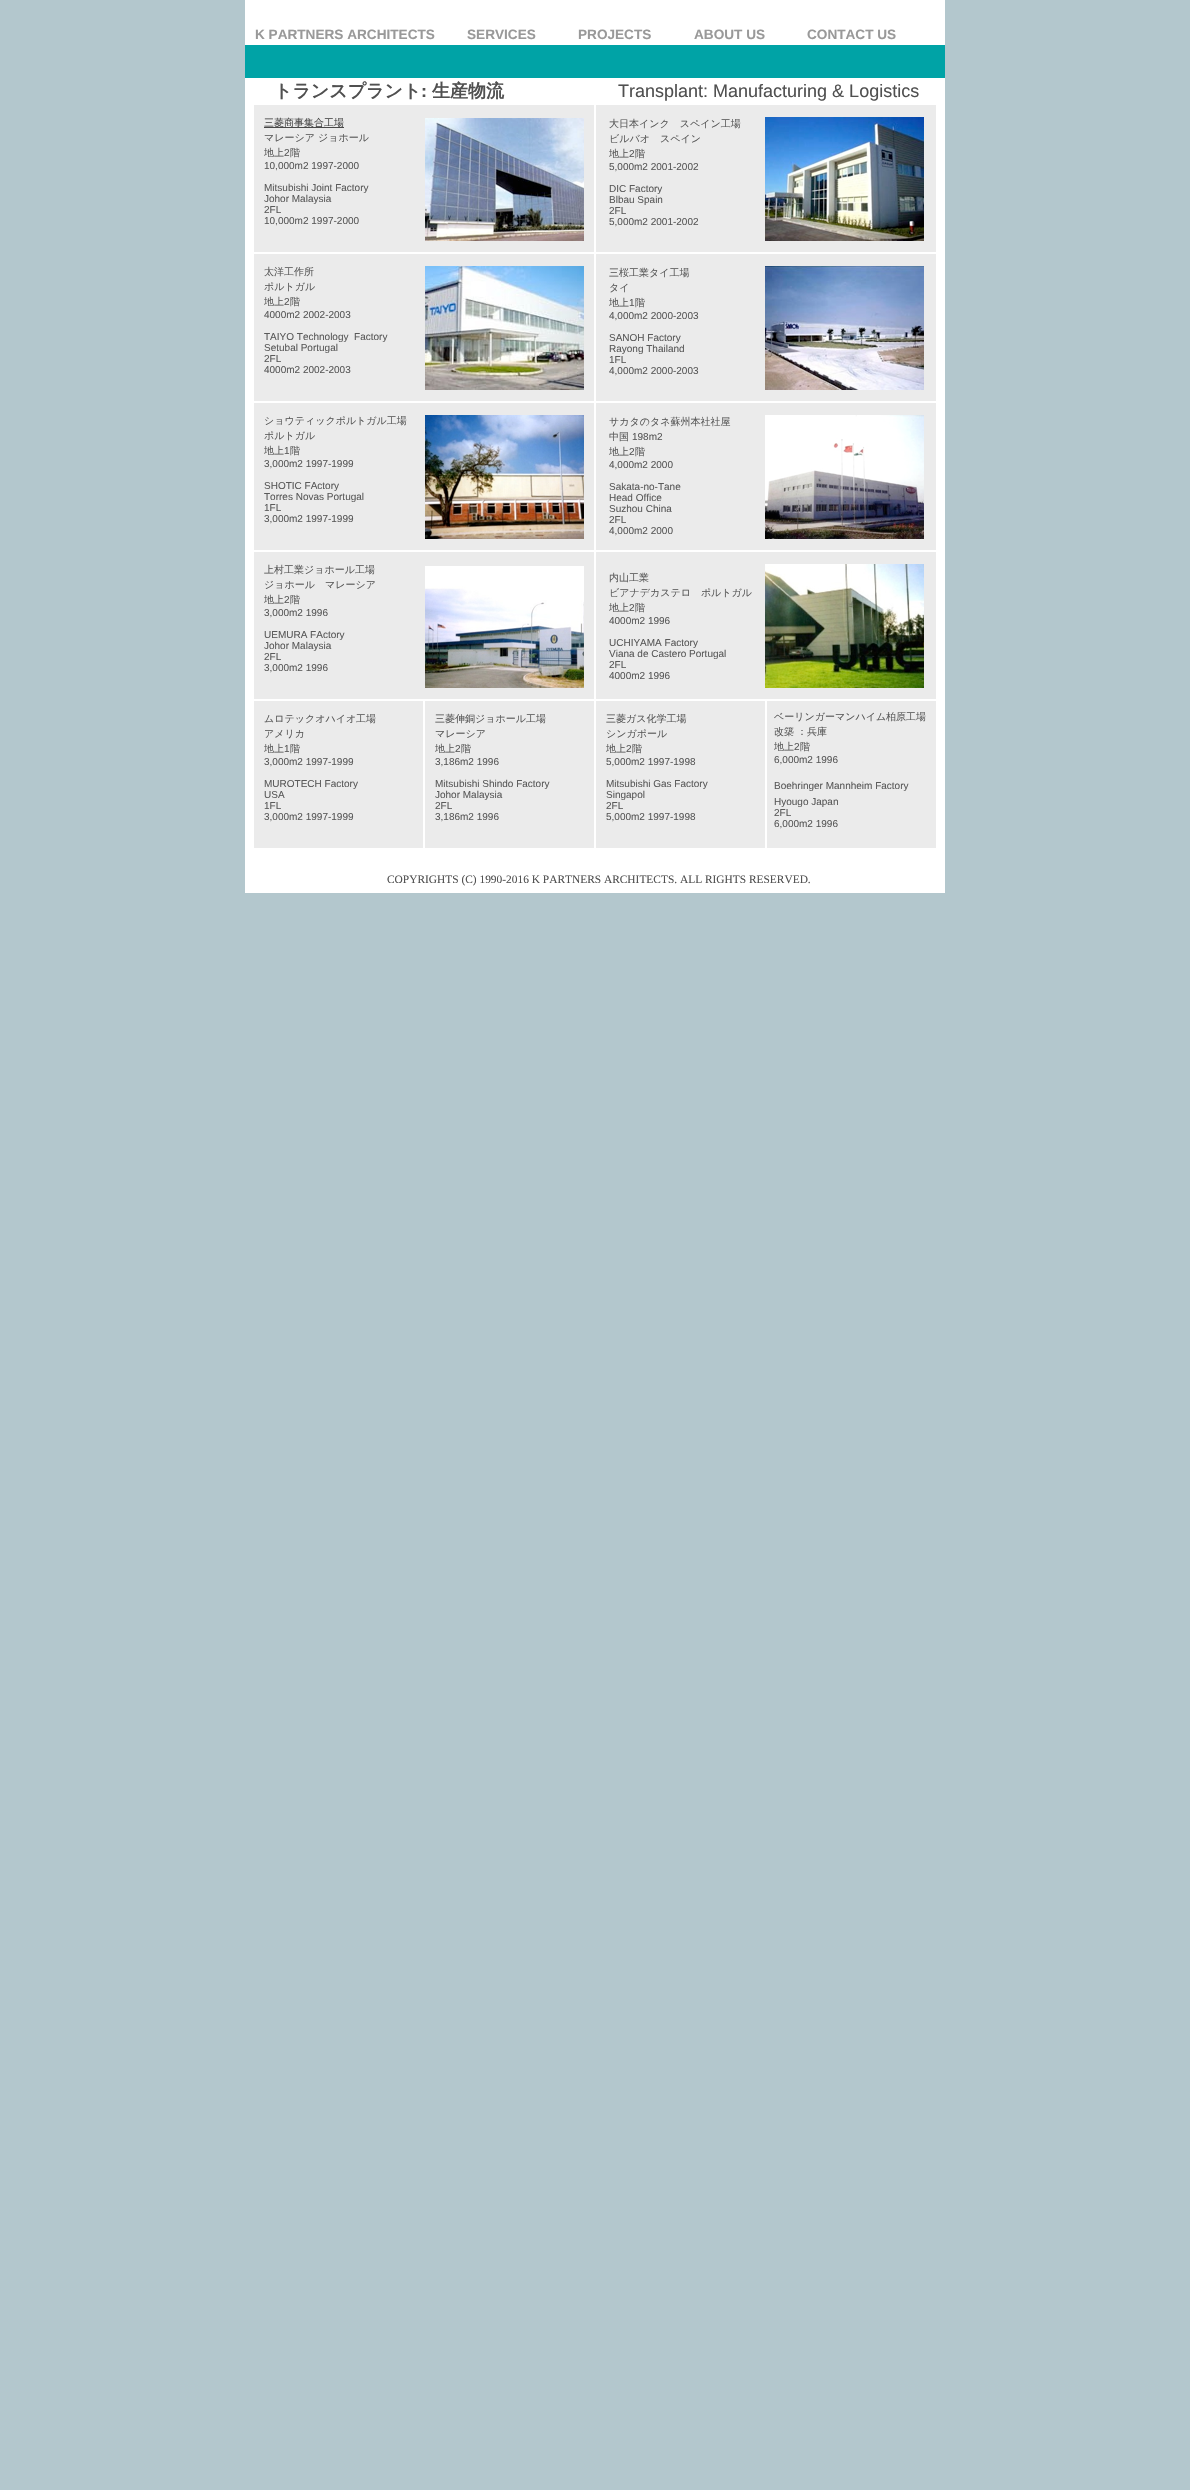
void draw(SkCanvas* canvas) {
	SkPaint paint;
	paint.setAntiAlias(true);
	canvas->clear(0xffb3c7cd);
	paint.setColor(0xffffffff);
	canvas->drawRect(SkRect::MakeXYWH(245, 0, 700, 893), paint);
	SkFont f1(fontMgr->matchFamilyStyle("Liberation Sans", SkFontStyle::Bold()), 13.6);
	f1.setSubpixel(true);
	paint.setColor(0xff999999);
	canvas->drawString("K PARTNERS ARCHITECTS", 255, 39, f1, paint);
	canvas->drawString("SERVICES", 467, 39, f1, paint);
	canvas->drawString("PROJECTS", 578, 39, f1, paint);
	canvas->drawString("ABOUT US", 694, 39, f1, paint);
	canvas->drawString("CONTACT US", 807, 39, f1, paint);
	paint.setColor(0xff00a3a6);
	canvas->drawRect(SkRect::MakeXYWH(245, 45, 700, 33), paint);
	SkFont f2(fontMgr->matchFamilyStyle("WenQuanYi Zen Hei", SkFontStyle::Bold()), 18);
	f2.setSubpixel(true);
	paint.setColor(0xff505050);
	canvas->drawString("トランスプラント", 274, 97, f2, paint);
	SkFont f3(fontMgr->matchFamilyStyle("Liberation Sans", SkFontStyle::Bold()), 18);
	f3.setSubpixel(true);
	canvas->drawString(":", 421, 97, f3, paint);
	canvas->drawString("生産物流", 432, 97, f2, paint);
	SkFont f4(fontMgr->matchFamilyStyle("Liberation Sans", SkFontStyle::Normal()), 18);
	f4.setSubpixel(true);
	canvas->drawString("Transplant: Manufacturing & Logistics", 618, 97, f4, paint);
	paint.setColor(0xffebebeb);
	canvas->drawRect(SkRect::MakeXYWH(254, 105, 340, 147), paint);
	canvas->drawRect(SkRect::MakeXYWH(596, 105, 340, 147), paint);
	paint.setColor(0xff484848);
	canvas->drawRect(SkRect::MakeXYWH(264, 127, 80, 1), paint);
	SkFont f5(fontMgr->matchFamilyStyle("WenQuanYi Zen Hei", SkFontStyle(500, SkFontStyle::kNormal_Width, SkFontStyle::kUpright_Slant)), 10);
	f5.setSubpixel(true);
	canvas->drawString("三菱商事集合工場", 264, 126, f5, paint);
	paint.setColor(0xff5a5a5a);
	canvas->drawString("マレーシア ジョホール", 264, 141, f5, paint);
	canvas->drawString("地上", 264, 156, f5, paint);
	SkFont f6(fontMgr->matchFamilyStyle("Liberation Sans", SkFontStyle::Normal()), 10);
	f6.setSubpixel(true);
	canvas->drawString("2", 284, 156, f6, paint);
	canvas->drawString("階", 290, 156, f5, paint);
	canvas->drawString("10,000m2 1997-2000", 264, 169, f6, paint);
	canvas->drawString("Mitsubishi Joint Factory", 264, 191, f6, paint);
	canvas->drawString("Johor Malaysia", 264, 202, f6, paint);
	canvas->drawString("2FL", 264, 213, f6, paint);
	canvas->drawString("10,000m2 1997-2000", 264, 224, f6, paint);
	canvas->drawImageRect(SkImages::DeferredFromEncodedData(SkData::MakeFromFileName("img1.png")), SkRect::MakeXYWH(425, 118, 159, 123), SkSamplingOptions());
	canvas->drawString("大日本インク　スペイン工場", 609, 127, f5, paint);
	canvas->drawString("ビルバオ　スペイン", 609, 142, f5, paint);
	canvas->drawString("地上", 609, 157, f5, paint);
	canvas->drawString("2", 629, 157, f6, paint);
	canvas->drawString("階", 635, 157, f5, paint);
	canvas->drawString("5,000m2 2001-2002", 609, 170, f6, paint);
	canvas->drawString("DIC Factory", 609, 192, f6, paint);
	canvas->drawString("Blbau Spain", 609, 203, f6, paint);
	canvas->drawString("2FL", 609, 214, f6, paint);
	canvas->drawString("5,000m2 2001-2002", 609, 225, f6, paint);
	canvas->drawImageRect(SkImages::DeferredFromEncodedData(SkData::MakeFromFileName("img2.png")), SkRect::MakeXYWH(765, 117, 159, 124), SkSamplingOptions());
	paint.setColor(0xffebebeb);
	canvas->drawRect(SkRect::MakeXYWH(254, 254, 340, 147), paint);
	canvas->drawRect(SkRect::MakeXYWH(596, 254, 340, 147), paint);
	paint.setColor(0xff5a5a5a);
	canvas->drawString("太洋工作所", 264, 275, f5, paint);
	canvas->drawString("ポルトガル", 264, 290, f5, paint);
	canvas->drawString("地上", 264, 305, f5, paint);
	canvas->drawString("2", 284, 305, f6, paint);
	canvas->drawString("階", 290, 305, f5, paint);
	canvas->drawString("4000m2 2002-2003", 264, 318, f6, paint);
	canvas->drawString("TAIYO Technology  Factory", 264, 340, f6, paint);
	canvas->drawString("Setubal Portugal", 264, 351, f6, paint);
	canvas->drawString("2FL", 264, 362, f6, paint);
	canvas->drawString("4000m2 2002-2003", 264, 373, f6, paint);
	canvas->drawImageRect(SkImages::DeferredFromEncodedData(SkData::MakeFromFileName("img3.png")), SkRect::MakeXYWH(425, 266, 159, 124), SkSamplingOptions());
	canvas->drawString("三桜工業タイ工場", 609, 276, f5, paint);
	canvas->drawString("タイ", 609, 291, f5, paint);
	canvas->drawString("地上", 609, 306, f5, paint);
	canvas->drawString("1", 629, 306, f6, paint);
	canvas->drawString("階", 635, 306, f5, paint);
	canvas->drawString("4,000m2 2000-2003", 609, 319, f6, paint);
	canvas->drawString("SANOH Factory", 609, 341, f6, paint);
	canvas->drawString("Rayong Thailand", 609, 352, f6, paint);
	canvas->drawString("1FL", 609, 363, f6, paint);
	canvas->drawString("4,000m2 2000-2003", 609, 374, f6, paint);
	canvas->drawImageRect(SkImages::DeferredFromEncodedData(SkData::MakeFromFileName("img4.png")), SkRect::MakeXYWH(765, 266, 159, 124), SkSamplingOptions());
	paint.setColor(0xffebebeb);
	canvas->drawRect(SkRect::MakeXYWH(254, 403, 340, 147), paint);
	canvas->drawRect(SkRect::MakeXYWH(596, 403, 340, 147), paint);
	paint.setColor(0xff5a5a5a);
	canvas->drawString("ショウティックポルトガル工場", 264, 424, f5, paint);
	canvas->drawString("ポルトガル", 264, 439, f5, paint);
	canvas->drawString("地上", 264, 454, f5, paint);
	canvas->drawString("1", 284, 454, f6, paint);
	canvas->drawString("階", 290, 454, f5, paint);
	canvas->drawString("3,000m2 1997-1999", 264, 467, f6, paint);
	canvas->drawString("SHOTIC FActory", 264, 489, f6, paint);
	canvas->drawString("Torres Novas Portugal", 264, 500, f6, paint);
	canvas->drawString("1FL", 264, 511, f6, paint);
	canvas->drawString("3,000m2 1997-1999", 264, 522, f6, paint);
	canvas->drawImageRect(SkImages::DeferredFromEncodedData(SkData::MakeFromFileName("img5.png")), SkRect::MakeXYWH(425, 415, 159, 124), SkSamplingOptions());
	canvas->drawString("サカタのタネ蘇州本社社屋", 609, 425, f5, paint);
	canvas->drawString("中国", 609, 440, f5, paint);
	canvas->drawString("198m2", 632, 440, f6, paint);
	canvas->drawString("地上", 609, 455, f5, paint);
	canvas->drawString("2", 629, 455, f6, paint);
	canvas->drawString("階", 635, 455, f5, paint);
	canvas->drawString("4,000m2 2000", 609, 468, f6, paint);
	canvas->drawString("Sakata-no-Tane", 609, 490, f6, paint);
	canvas->drawString("Head Office", 609, 501, f6, paint);
	canvas->drawString("Suzhou China", 609, 512, f6, paint);
	canvas->drawString("2FL", 609, 523, f6, paint);
	canvas->drawString("4,000m2 2000", 609, 534, f6, paint);
	canvas->drawImageRect(SkImages::DeferredFromEncodedData(SkData::MakeFromFileName("img6.png")), SkRect::MakeXYWH(765, 415, 159, 124), SkSamplingOptions());
	paint.setColor(0xffebebeb);
	canvas->drawRect(SkRect::MakeXYWH(254, 552, 340, 147), paint);
	canvas->drawRect(SkRect::MakeXYWH(596, 552, 340, 147), paint);
	paint.setColor(0xff5a5a5a);
	canvas->drawString("上村工業ジョホール工場", 264, 573, f5, paint);
	canvas->drawString("ジョホール　マレーシア", 264, 588, f5, paint);
	canvas->drawString("地上", 264, 603, f5, paint);
	canvas->drawString("2", 284, 603, f6, paint);
	canvas->drawString("階", 290, 603, f5, paint);
	canvas->drawString("3,000m2 1996", 264, 616, f6, paint);
	canvas->drawString("UEMURA FActory", 264, 638, f6, paint);
	canvas->drawString("Johor Malaysia", 264, 649, f6, paint);
	canvas->drawString("2FL", 264, 660, f6, paint);
	canvas->drawString("3,000m2 1996", 264, 671, f6, paint);
	canvas->drawImageRect(SkImages::DeferredFromEncodedData(SkData::MakeFromFileName("img7.png")), SkRect::MakeXYWH(425, 566, 159, 122), SkSamplingOptions());
	canvas->drawString("内山工業", 609, 581, f5, paint);
	canvas->drawString("ビアナデカステロ　ポルトガル", 609, 596, f5, paint);
	canvas->drawString("地上", 609, 611, f5, paint);
	canvas->drawString("2", 629, 611, f6, paint);
	canvas->drawString("階", 635, 611, f5, paint);
	canvas->drawString("4000m2 1996", 609, 624, f6, paint);
	canvas->drawString("UCHIYAMA Factory", 609, 646, f6, paint);
	canvas->drawString("Viana de Castero Portugal", 609, 657, f6, paint);
	canvas->drawString("2FL", 609, 668, f6, paint);
	canvas->drawString("4000m2 1996", 609, 679, f6, paint);
	canvas->drawImageRect(SkImages::DeferredFromEncodedData(SkData::MakeFromFileName("img8.png")), SkRect::MakeXYWH(765, 564, 159, 124), SkSamplingOptions());
	paint.setColor(0xffebebeb);
	canvas->drawRect(SkRect::MakeXYWH(254, 701, 169, 147), paint);
	canvas->drawRect(SkRect::MakeXYWH(425, 701, 169, 147), paint);
	canvas->drawRect(SkRect::MakeXYWH(596, 701, 169, 147), paint);
	canvas->drawRect(SkRect::MakeXYWH(767, 701, 169, 147), paint);
	paint.setColor(0xff5a5a5a);
	canvas->drawString("ムロテックオハイオ工場", 264, 722, f5, paint);
	canvas->drawString("アメリカ", 264, 737, f5, paint);
	canvas->drawString("地上", 264, 752, f5, paint);
	canvas->drawString("1", 284, 752, f6, paint);
	canvas->drawString("階", 290, 752, f5, paint);
	canvas->drawString("3,000m2 1997-1999", 264, 765, f6, paint);
	canvas->drawString("MUROTECH Factory", 264, 787, f6, paint);
	canvas->drawString("USA", 264, 798, f6, paint);
	canvas->drawString("1FL", 264, 809, f6, paint);
	canvas->drawString("3,000m2 1997-1999", 264, 820, f6, paint);
	canvas->drawString("三菱伸銅ジョホール工場", 435, 722, f5, paint);
	canvas->drawString("マレーシア", 435, 737, f5, paint);
	canvas->drawString("地上", 435, 752, f5, paint);
	canvas->drawString("2", 455, 752, f6, paint);
	canvas->drawString("階", 461, 752, f5, paint);
	canvas->drawString("3,186m2 1996", 435, 765, f6, paint);
	canvas->drawString("Mitsubishi Shindo Factory", 435, 787, f6, paint);
	canvas->drawString("Johor Malaysia", 435, 798, f6, paint);
	canvas->drawString("2FL", 435, 809, f6, paint);
	canvas->drawString("3,186m2 1996", 435, 820, f6, paint);
	canvas->drawString("三菱ガス化学工場", 606, 722, f5, paint);
	canvas->drawString("シンガポール", 606, 737, f5, paint);
	canvas->drawString("地上", 606, 752, f5, paint);
	canvas->drawString("2", 626, 752, f6, paint);
	canvas->drawString("階", 632, 752, f5, paint);
	canvas->drawString("5,000m2 1997-1998", 606, 765, f6, paint);
	canvas->drawString("Mitsubishi Gas Factory", 606, 787, f6, paint);
	canvas->drawString("Singapol", 606, 798, f6, paint);
	canvas->drawString("2FL", 606, 809, f6, paint);
	canvas->drawString("5,000m2 1997-1998", 606, 820, f6, paint);
	canvas->drawString("ベーリンガーマンハイム柏原工場", 774, 720, f5, paint);
	canvas->drawString("改築 ：兵庫", 774, 735, f5, paint);
	canvas->drawString("地上", 774, 750, f5, paint);
	canvas->drawString("2", 794, 750, f6, paint);
	canvas->drawString("階", 800, 750, f5, paint);
	canvas->drawString("6,000m2 1996", 774, 763, f6, paint);
	canvas->drawString("Boehringer Mannheim Factory", 774, 789, f6, paint);
	canvas->drawString("Hyougo Japan", 774, 805, f6, paint);
	canvas->drawString("2FL", 774, 816, f6, paint);
	canvas->drawString("6,000m2 1996", 774, 827, f6, paint);
	SkFont f7(fontMgr->matchFamilyStyle("Liberation Serif", SkFontStyle::Normal()), 11.4);
	f7.setSubpixel(true);
	paint.setColor(0xff505050);
	canvas->drawString("COPYRIGHTS (C) 1990-2016 K PARTNERS ARCHITECTS. ALL RIGHTS RESERVED.", 387, 883, f7, paint);
}
